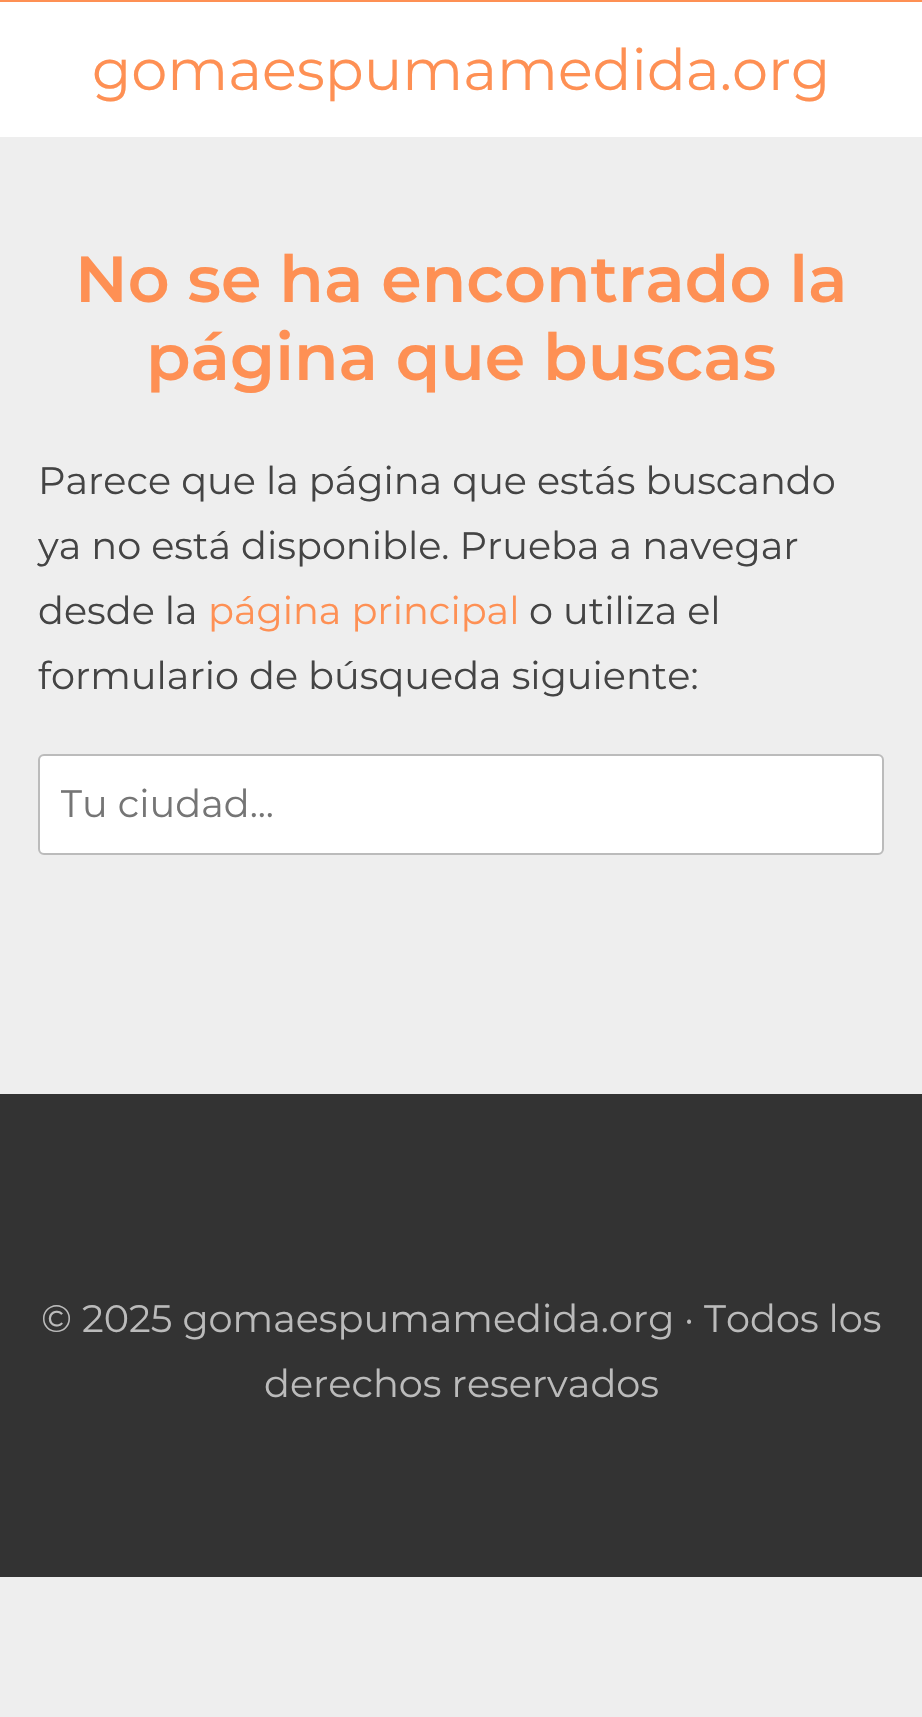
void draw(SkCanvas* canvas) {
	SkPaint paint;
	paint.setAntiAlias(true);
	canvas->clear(0xffeeeeee);
	paint.setColor(0xffffffff);
	canvas->drawRect(SkRect::MakeXYWH(0, 2, 922, 135), paint);
	paint.setColor(0xfffe9054);
	canvas->drawRect(SkRect::MakeXYWH(0, 0, 922, 2), paint);
	SkFont f1(fontMgr->matchFamilyStyle("Montserrat", SkFontStyle::Normal()), 57.4);
	f1.setSubpixel(true);
	canvas->drawString("gomaespumamedida.org", 92, 90, f1, paint);
	SkFont f2(fontMgr->matchFamilyStyle("Montserrat", SkFontStyle(600, SkFontStyle::kNormal_Width, SkFontStyle::kUpright_Slant)), 65);
	f2.setSubpixel(true);
	canvas->drawString("No se ha encontrado la", 75, 302, f2, paint);
	canvas->drawString("página que buscas", 146, 380, f2, paint);
	SkFont f3(fontMgr->matchFamilyStyle("Montserrat", SkFontStyle::Normal()), 38.25);
	f3.setSubpixel(true);
	paint.setColor(0xff444444);
	canvas->drawString("Parece que la página que estás buscando", 38, 494, f3, paint);
	canvas->drawString("ya no está disponible. Prueba a navegar", 38, 559, f3, paint);
	canvas->drawString("desde la", 38, 624, f3, paint);
	paint.setColor(0xfffe9054);
	canvas->drawString("página principal", 208, 624, f3, paint);
	paint.setColor(0xff444444);
	canvas->drawString("o utiliza el", 529, 624, f3, paint);
	canvas->drawString("formulario de búsqueda siguiente:", 38, 689, f3, paint);
	paint.setColor(0xffffffff);
	canvas->drawRoundRect(SkRect::MakeXYWH(39, 755, 844, 99), 5, 5, paint);
	paint.setStroke(true);
	paint.setStrokeWidth(2);
	paint.setColor(0xffbbbbbb);
	canvas->drawRoundRect(SkRect::MakeXYWH(39, 755, 844, 99), 5, 5, paint);
	canvas->save();
	canvas->clipRect(SkRect::MakeXYWH(61, 781, 767, 45));
	paint.setStroke(false);
	paint.setColor(0xff757575);
	canvas->drawString("Tu ciudad...", 60, 817, f3, paint);
	canvas->restore();
	paint.setColor(0xff333333);
	canvas->drawRect(SkRect::MakeXYWH(0, 1094, 922, 483), paint);
	paint.setColor(0xffbbbbbb);
	canvas->drawString("© 2025 gomaespumamedida.org · Todos los", 41, 1332, f3, paint);
	canvas->drawString("derechos reservados", 264, 1397, f3, paint);
}
